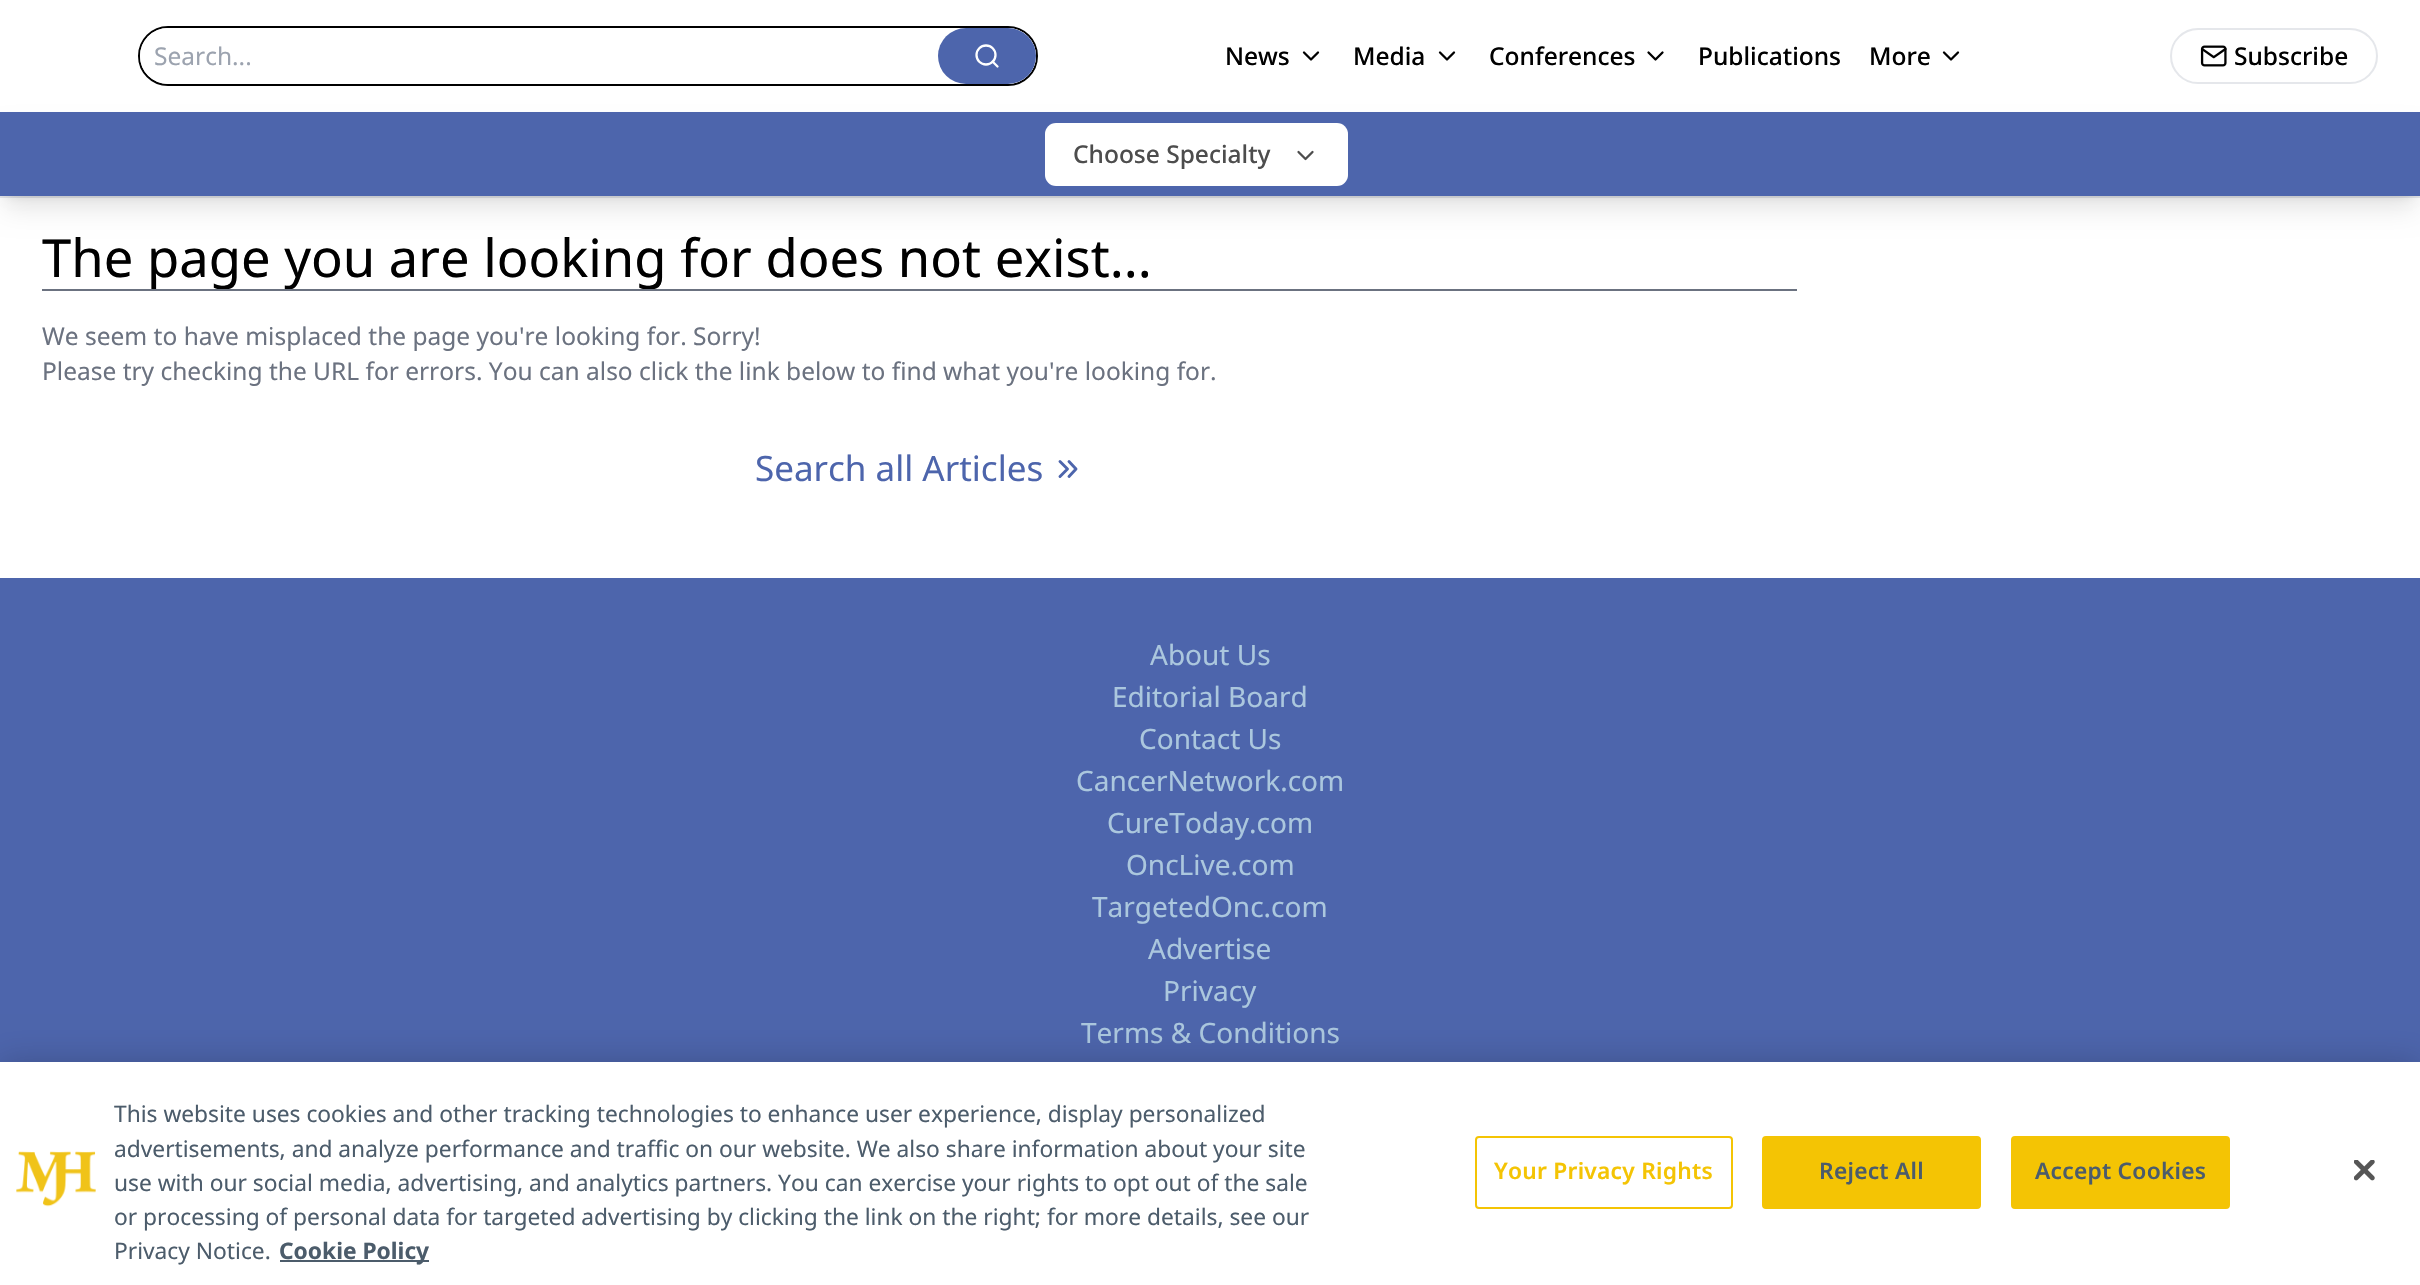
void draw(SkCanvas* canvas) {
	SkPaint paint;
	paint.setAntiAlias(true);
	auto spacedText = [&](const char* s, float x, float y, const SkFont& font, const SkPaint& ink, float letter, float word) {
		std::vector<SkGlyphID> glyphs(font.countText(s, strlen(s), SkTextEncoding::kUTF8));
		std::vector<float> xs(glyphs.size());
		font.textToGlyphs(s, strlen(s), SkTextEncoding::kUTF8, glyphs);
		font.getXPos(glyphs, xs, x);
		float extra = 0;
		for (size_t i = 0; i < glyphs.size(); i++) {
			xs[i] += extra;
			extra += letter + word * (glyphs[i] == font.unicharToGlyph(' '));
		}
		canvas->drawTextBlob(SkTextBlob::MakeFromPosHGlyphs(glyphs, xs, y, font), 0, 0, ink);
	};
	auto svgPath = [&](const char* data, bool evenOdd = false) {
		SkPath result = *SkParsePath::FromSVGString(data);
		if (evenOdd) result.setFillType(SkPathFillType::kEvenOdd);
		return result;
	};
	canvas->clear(0xffffffff);
	paint.setColor(0xffe5e7eb);
	canvas->drawRect(SkRect::MakeXYWH(0, 196, 2420, 2), paint);
	paint.setStroke(true);
	paint.setStrokeWidth(2);
	paint.setColor(0xff000000);
	canvas->drawRoundRect(SkRect::MakeXYWH(139, 27, 898, 58), 29, 29, paint);
	paint.setStroke(false);
	paint.setColor(0xffffffff);
	canvas->drawRoundRect(SkRect::MakeXYWH(140, 28, 896, 56), 28, 28, paint);
	SkFont f1(fontMgr->matchFamilyStyle("Noto Sans", SkFontStyle::Normal()), 24.5);
	f1.setSubpixel(true);
	paint.setColor(0xff9ca3af);
	canvas->drawString("Search...", 154, 65, f1, paint);
	paint.setColor(0xff4d65ac);
	canvas->drawRoundRect(SkRect::MakeXYWH(938, 28, 98, 56), 28, 28, paint);
	paint.setStroke(true);
	paint.setStrokeWidth(2.3);
	paint.setColor(0xffffffff);
	canvas->drawCircle(986, 55, 9.5, paint);
	paint.setStrokeCap(SkPaint::kRound_Cap);
	paint.setStrokeJoin(SkPaint::kRound_Join);
	canvas->drawPath(svgPath("M997.5 66.5L992.5 61.5"), paint);
	SkFont f2(fontMgr->matchFamilyStyle("Noto Sans", SkFontStyle(500, SkFontStyle::kNormal_Width, SkFontStyle::kUpright_Slant)), 24.5);
	f2.setSubpixel(true);
	paint.setStroke(false);
	paint.setColor(0xff000000);
	canvas->drawString("News", 1225, 65, f2, paint);
	paint.setStroke(true);
	canvas->drawPath(svgPath("M1304 52.5L1311 59.5L1318 52.5"), paint);
	paint.setStroke(false);
	canvas->drawString("Media", 1353, 65, f2, paint);
	paint.setStroke(true);
	canvas->drawPath(svgPath("M1440 52.5L1447 59.5L1454 52.5"), paint);
	paint.setStroke(false);
	canvas->drawString("Conferences", 1489, 65, f2, paint);
	paint.setStroke(true);
	canvas->drawPath(svgPath("M1648.5 52.5L1655.5 59.5L1662.5 52.5"), paint);
	paint.setStroke(false);
	canvas->drawString("Publications", 1698, 65, f2, paint);
	canvas->drawString("More", 1869, 65, f2, paint);
	paint.setStroke(true);
	canvas->drawPath(svgPath("M1944 52.5L1951 59.5L1958 52.5"), paint);
	paint.setStrokeWidth(2);
	paint.setStrokeCap(SkPaint::kButt_Cap);
	paint.setStrokeJoin(SkPaint::kMiter_Join);
	paint.setColor(0xffe5e7eb);
	canvas->drawRoundRect(SkRect::MakeXYWH(2171, 29, 206, 54), 27, 27, paint);
	canvas->drawImageRect(SkImages::DeferredFromEncodedData(SkData::MakeFromFileName("img1.png")), SkRect::MakeXYWH(2200, 45, 27, 22), SkSamplingOptions());
	paint.setStroke(false);
	paint.setColor(0xff000000);
	canvas->drawString("Subscribe", 2234, 65, f2, paint);
	paint.setColor(0x1a000000);
	paint.setMaskFilter(SkMaskFilter::MakeBlur(kNormal_SkBlurStyle, 5));
	canvas->drawRect(SkRect::MakeXYWH(7, 126, 2406, 70), paint);
	paint.setMaskFilter(nullptr);
	paint.setMaskFilter(SkMaskFilter::MakeBlur(kNormal_SkBlurStyle, 13));
	canvas->drawRect(SkRect::MakeXYWH(5, 135, 2410, 73), paint);
	paint.setMaskFilter(nullptr);
	paint.setColor(0xff4d65ac);
	canvas->drawRect(SkRect::MakeXYWH(0, 112, 2420, 84), paint);
	paint.setColor(0xffffffff);
	canvas->drawRoundRect(SkRect::MakeXYWH(1045, 123, 303, 63), 11, 11, paint);
	paint.setColor(0xff4d4d4d);
	canvas->drawString("Choose Specialty", 1073, 163, f2, paint);
	paint.setStroke(true);
	paint.setStrokeWidth(2.3);
	paint.setStrokeCap(SkPaint::kRound_Cap);
	paint.setStrokeJoin(SkPaint::kRound_Join);
	canvas->drawPath(svgPath("M1298.5 152L1305.5 159L1312.5 152"), paint);
	SkFont f3(fontMgr->matchFamilyStyle("Noto Sans", SkFontStyle::Normal()), 52.5);
	f3.setSubpixel(true);
	paint.setStroke(false);
	paint.setColor(0xff000000);
	canvas->drawString("The page you are looking for does not exist...", 42, 277, f3, paint);
	paint.setColor(0xff6b7280);
	canvas->drawRect(SkRect::MakeXYWH(42, 289, 1755, 2), paint);
	canvas->drawString("We seem to have misplaced the page you're looking for. Sorry!", 42, 345, f1, paint);
	canvas->drawString("Please try checking the URL for errors. You can also click the link below to find what you're looking for.", 42, 380, f1, paint);
	SkFont f4(fontMgr->matchFamilyStyle("Noto Sans", SkFontStyle::Normal()), 35);
	f4.setSubpixel(true);
	paint.setColor(0xff4d65ac);
	canvas->drawString("Search all Articles", 755, 481, f4, paint);
	paint.setStroke(true);
	paint.setStrokeWidth(2.9);
	canvas->drawPath(svgPath("M1060 461.5L1067.5 469L1060 476.5M1069 461.5L1076 469L1069 476.5"), paint);
	paint.setStroke(false);
	canvas->drawRect(SkRect::MakeXYWH(0, 578, 2420, 484), paint);
	SkFont f5(fontMgr->matchFamilyStyle("Noto Sans", SkFontStyle::Normal()), 28);
	f5.setSubpixel(true);
	paint.setColor(0xffabc7de);
	canvas->drawString("About Us", 1150, 665, f5, paint);
	canvas->drawString("Editorial Board", 1112, 707, f5, paint);
	canvas->drawString("Contact Us", 1139, 749, f5, paint);
	canvas->drawString("CancerNetwork.com", 1076, 791, f5, paint);
	canvas->drawString("CureToday.com", 1107, 833, f5, paint);
	canvas->drawString("OncLive.com", 1126, 875, f5, paint);
	canvas->drawString("TargetedOnc.com", 1092, 917, f5, paint);
	canvas->drawString("Advertise", 1148, 959, f5, paint);
	canvas->drawString("Privacy", 1163, 1001, f5, paint);
	canvas->drawString("Terms & Conditions", 1081, 1043, f5, paint);
	paint.setColor(0x33000000);
	paint.setMaskFilter(SkMaskFilter::MakeBlur(kNormal_SkBlurStyle, 16));
	canvas->drawRect(SkRect::MakeXYWH(0, 1062, 2420, 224), paint);
	paint.setMaskFilter(nullptr);
	paint.setColor(0xffffffff);
	canvas->drawRect(SkRect::MakeXYWH(0, 1062, 2420, 223), paint);
	canvas->drawImageRect(SkImages::DeferredFromEncodedData(SkData::MakeFromFileName("img2.png")), SkRect::MakeXYWH(16, 1151, 80, 56), SkSamplingOptions());
	SkFont f6(fontMgr->matchFamilyStyle("Noto Sans", SkFontStyle::Normal()), 22.75);
	f6.setSubpixel(true);
	paint.setColor(0xff4c5c6b);
	canvas->drawString("This website uses cookies and other tracking technologies to enhance user experience, display personalized", 114, 1122, f6, paint);
	canvas->drawString("advertisements, and analyze performance and traffic on our website. We also share information about your site", 114, 1157, f6, paint);
	canvas->drawString("use with our social media, advertising, and analytics partners. You can exercise your rights to opt out of the sale", 114, 1191, f6, paint);
	canvas->drawString("or processing of personal data for targeted advertising by clicking the link on the right; for more details, see our", 114, 1225, f6, paint);
	canvas->drawString("Privacy Notice.", 114, 1259, f6, paint);
	canvas->drawRect(SkRect::MakeXYWH(280, 1260, 149, 2), paint);
	SkFont f7(fontMgr->matchFamilyStyle("Noto Sans", SkFontStyle::Bold()), 22.75);
	f7.setSubpixel(true);
	canvas->drawString("Cookie Policy", 279, 1259, f7, paint);
	paint.setStroke(true);
	paint.setStrokeWidth(2);
	paint.setStrokeCap(SkPaint::kButt_Cap);
	paint.setStrokeJoin(SkPaint::kMiter_Join);
	paint.setColor(0xfff4c404);
	canvas->drawRoundRect(SkRect::MakeXYWH(1476, 1137, 256, 71), 3, 3, paint);
	SkFont f8(fontMgr->matchFamilyStyle("Noto Sans", SkFontStyle(600, SkFontStyle::kNormal_Width, SkFontStyle::kUpright_Slant)), 22.75);
	f8.setSubpixel(true);
	paint.setStroke(false);
	spacedText("Your Privacy Rights", 1494, 1179, f8, paint, 0.25, 0);
	canvas->drawRoundRect(SkRect::MakeXYWH(1763, 1137, 217, 71), 3, 3, paint);
	paint.setStroke(true);
	canvas->drawRoundRect(SkRect::MakeXYWH(1763, 1137, 217, 71), 3, 3, paint);
	paint.setStroke(false);
	paint.setColor(0xff4c5c6b);
	spacedText("Reject All", 1819, 1179, f8, paint, 0.25, 0);
	paint.setColor(0xfff4c404);
	canvas->drawRoundRect(SkRect::MakeXYWH(2012, 1137, 217, 71), 3, 3, paint);
	paint.setStroke(true);
	canvas->drawRoundRect(SkRect::MakeXYWH(2012, 1137, 217, 71), 3, 3, paint);
	paint.setStroke(false);
	paint.setColor(0xff4c5c6b);
	spacedText("Accept Cookies", 2035, 1179, f8, paint, 0.25, 0);
	canvas->drawImageRect(SkImages::DeferredFromEncodedData(SkData::MakeFromFileName("img3.png")), SkRect::MakeXYWH(2354, 1160, 21, 21), SkSamplingOptions());
}
